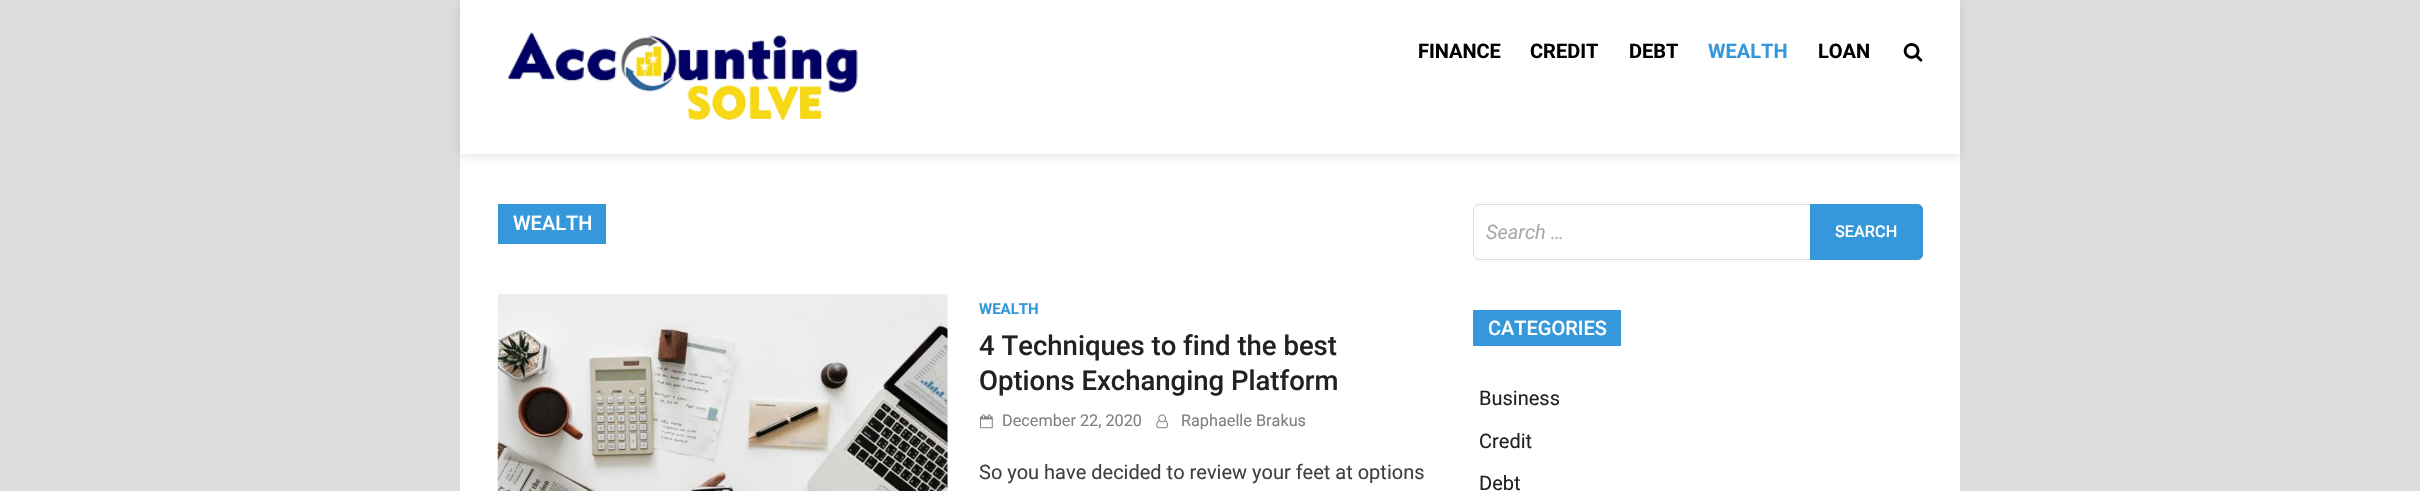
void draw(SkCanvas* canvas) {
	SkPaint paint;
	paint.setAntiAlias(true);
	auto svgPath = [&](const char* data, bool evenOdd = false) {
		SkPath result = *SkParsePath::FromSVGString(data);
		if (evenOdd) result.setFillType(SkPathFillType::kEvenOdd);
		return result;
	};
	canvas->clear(0xffdddddd);
	paint.setColor(0xffffffff);
	canvas->drawRect(SkRect::MakeXYWH(460, 0, 1500, 491), paint);
	canvas->save();
	canvas->clipPath(svgPath("M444 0H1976V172H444ZM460 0H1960V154H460Z", true), true);
	paint.setColor(0x1a000000);
	paint.setMaskFilter(SkMaskFilter::MakeBlur(kNormal_SkBlurStyle, 5));
	canvas->drawRect(SkRect::MakeXYWH(460, 3, 1500, 153), paint);
	paint.setMaskFilter(nullptr);
	canvas->restore();
	canvas->drawImageRect(SkImages::DeferredFromEncodedData(SkData::MakeFromFileName("img1.png")), SkRect::MakeXYWH(507, 32, 351, 89), SkSamplingOptions());
	SkFont f1(fontMgr->matchFamilyStyle("Roboto", SkFontStyle::Bold()), 20);
	f1.setSubpixel(true);
	paint.setColor(0xff000000);
	canvas->drawString("FINANCE", 1418, 58, f1, paint);
	canvas->drawString("CREDIT", 1530, 58, f1, paint);
	canvas->drawString("DEBT", 1629, 58, f1, paint);
	paint.setColor(0xff3498db);
	canvas->drawString("WEALTH", 1708, 58, f1, paint);
	paint.setColor(0xff000000);
	canvas->drawString("LOAN", 1818, 58, f1, paint);
	canvas->drawImageRect(SkImages::DeferredFromEncodedData(SkData::MakeFromFileName("img2.png")), SkRect::MakeXYWH(1903, 43, 20, 19), SkSamplingOptions());
	paint.setColor(0xff3498db);
	canvas->drawRect(SkRect::MakeXYWH(498, 204, 108, 40), paint);
	SkFont f2(fontMgr->matchFamilyStyle("Roboto", SkFontStyle(500, SkFontStyle::kNormal_Width, SkFontStyle::kUpright_Slant)), 20);
	f2.setSubpixel(true);
	paint.setColor(0xffffffff);
	canvas->drawString("WEALTH", 513, 230, f2, paint);
	canvas->drawImageRect(SkImages::DeferredFromEncodedData(SkData::MakeFromFileName("img3.png")), SkRect::MakeXYWH(497, 294, 451, 197), SkSamplingOptions());
	SkFont f3(fontMgr->matchFamilyStyle("Roboto", SkFontStyle::Bold()), 15);
	f3.setSubpixel(true);
	paint.setColor(0xff3498db);
	canvas->drawString("WEALTH", 979, 314, f3, paint);
	SkFont f4(fontMgr->matchFamilyStyle("Roboto", SkFontStyle(500, SkFontStyle::kNormal_Width, SkFontStyle::kUpright_Slant)), 27.5);
	f4.setSubpixel(true);
	paint.setColor(0xff222222);
	canvas->drawString("4 Techniques to find the best", 979, 355, f4, paint);
	canvas->drawString("Options Exchanging Platform", 979, 390, f4, paint);
	canvas->drawImageRect(SkImages::DeferredFromEncodedData(SkData::MakeFromFileName("img4.png")), SkRect::MakeXYWH(980, 414, 13, 15), SkSamplingOptions());
	SkFont f5(fontMgr->matchFamilyStyle("Roboto", SkFontStyle::Normal()), 16.25);
	f5.setSubpixel(true);
	paint.setColor(0xff808080);
	canvas->drawString("December 22, 2020", 1002, 426, f5, paint);
	canvas->drawImageRect(SkImages::DeferredFromEncodedData(SkData::MakeFromFileName("img5.png")), SkRect::MakeXYWH(1156, 414, 12, 15), SkSamplingOptions());
	canvas->drawString("Raphaelle Brakus", 1181, 426, f5, paint);
	SkFont f6(fontMgr->matchFamilyStyle("Roboto", SkFontStyle::Normal()), 20);
	f6.setSubpixel(true);
	paint.setColor(0xff404040);
	canvas->drawString("So you have decided to review your feet at options", 979, 479, f6, paint);
	paint.setStroke(true);
	paint.setStrokeWidth(1);
	paint.setColor(0xffdddddd);
	canvas->drawRoundRect(SkRect::MakeXYWH(1473.5, 204.5, 449, 55), 5.5, 5.5, paint);
	SkFont f7(fontMgr->matchFamilyStyle("Roboto", SkFontStyle::Italic()), 20);
	f7.setSubpixel(true);
	paint.setStroke(false);
	paint.setColor(0xffaaaaaa);
	canvas->drawString("Search …", 1486, 239, f7, paint);
	paint.setColor(0xff3498db);
	canvas->drawPath(svgPath("M1810 204H1917C1920.5 204 1923 206.5 1923 210V254C1923 257.5 1920.5 260 1917 260H1810Z"), paint);
	SkFont f8(fontMgr->matchFamilyStyle("Roboto", SkFontStyle(500, SkFontStyle::kNormal_Width, SkFontStyle::kUpright_Slant)), 16.25);
	f8.setSubpixel(true);
	paint.setColor(0xffffffff);
	canvas->drawString("SEARCH", 1835, 237, f8, paint);
	paint.setColor(0xff3498db);
	canvas->drawRect(SkRect::MakeXYWH(1473, 310, 148, 36), paint);
	paint.setColor(0xffffffff);
	canvas->drawString("CATEGORIES", 1488, 335, f2, paint);
	paint.setColor(0xff222222);
	canvas->drawString("Business", 1479, 405, f6, paint);
	canvas->drawString("Credit", 1479, 448, f6, paint);
	canvas->drawString("Debt", 1479, 490, f6, paint);
}
